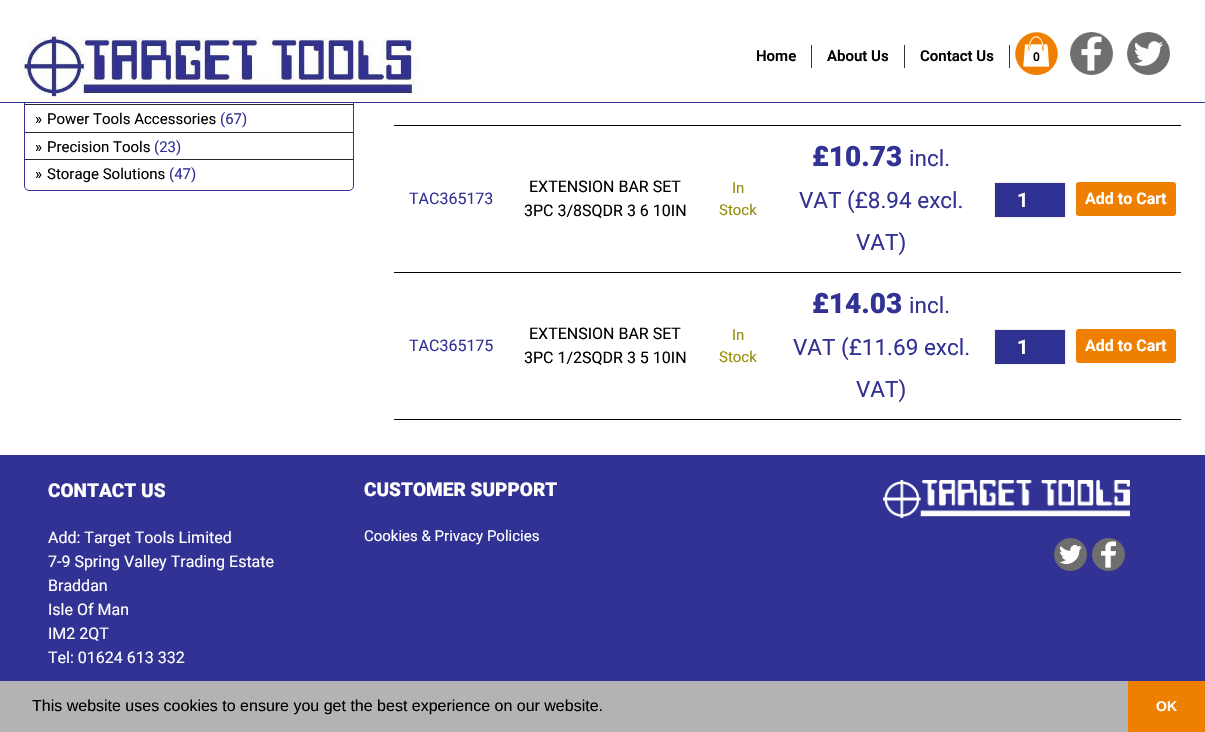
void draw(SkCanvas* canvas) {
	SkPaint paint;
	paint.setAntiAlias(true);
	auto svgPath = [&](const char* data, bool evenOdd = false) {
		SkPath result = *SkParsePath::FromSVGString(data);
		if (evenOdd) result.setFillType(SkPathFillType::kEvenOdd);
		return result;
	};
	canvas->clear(0xffffffff);
	paint.setStroke(true);
	paint.setStrokeWidth(1);
	paint.setColor(0xff323294);
	canvas->drawPath(svgPath("M24.5-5.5H353.5V186C353.5 188.5 351.5 190.5 349 190.5H29C26.5 190.5 24.5 188.5 24.5 186Z"), paint);
	paint.setStroke(false);
	paint.setColor(0xffffffff);
	canvas->drawRect(SkRect::MakeXYWH(24, 0, 330, 102), paint);
	paint.setColor(0xff323294);
	canvas->drawRect(SkRect::MakeXYWH(0, 102, 1205, 1), paint);
	canvas->drawImageRect(SkImages::DeferredFromEncodedData(SkData::MakeFromFileName("img1.png")), SkRect::MakeXYWH(20, 28, 400, 72), SkSamplingOptions());
	paint.setColor(0xff353535);
	canvas->drawRect(SkRect::MakeXYWH(811, 45, 1, 23), paint);
	SkFont f1(fontMgr->matchFamilyStyle("Roboto", SkFontStyle(600, SkFontStyle::kNormal_Width, SkFontStyle::kUpright_Slant)), 15);
	f1.setSubpixel(true);
	paint.setColor(0xff000000);
	canvas->drawString("Home", 756, 61, f1, paint);
	paint.setColor(0xff353535);
	canvas->drawRect(SkRect::MakeXYWH(904, 45, 1, 23), paint);
	paint.setColor(0xff000000);
	canvas->drawString("About Us", 827, 61, f1, paint);
	paint.setColor(0xff353535);
	canvas->drawRect(SkRect::MakeXYWH(1009, 45, 1, 23), paint);
	paint.setColor(0xff000000);
	canvas->drawString("Contact Us", 920, 61, f1, paint);
	canvas->drawImageRect(SkImages::DeferredFromEncodedData(SkData::MakeFromFileName("img2.png")), SkRect::MakeXYWH(1015, 32, 43, 43), SkSamplingOptions());
	SkFont f2(fontMgr->matchFamilyStyle("Roboto", SkFontStyle(600, SkFontStyle::kNormal_Width, SkFontStyle::kUpright_Slant)), 12);
	f2.setSubpixel(true);
	canvas->drawString("0", 1033, 61, f2, paint);
	canvas->drawImageRect(SkImages::DeferredFromEncodedData(SkData::MakeFromFileName("img3.png")), SkRect::MakeXYWH(1070, 32, 43, 43), SkSamplingOptions());
	canvas->drawImageRect(SkImages::DeferredFromEncodedData(SkData::MakeFromFileName("img4.png")), SkRect::MakeXYWH(1127, 32, 43, 43), SkSamplingOptions());
	paint.setColor(0xff292929);
	canvas->drawRect(SkRect::MakeXYWH(25, 104, 328, 1), paint);
	canvas->drawRect(SkRect::MakeXYWH(25, 132, 328, 1), paint);
	SkFont f3(fontMgr->matchFamilyStyle("Roboto", SkFontStyle::Normal()), 15);
	f3.setSubpixel(true);
	paint.setColor(0xff000000);
	canvas->drawString("»", 35, 124, f3, paint);
	canvas->drawString("Power Tools Accessories", 47, 124, f3, paint);
	paint.setColor(0xff323294);
	canvas->drawString("(67)", 220, 124, f3, paint);
	paint.setColor(0xff292929);
	canvas->drawRect(SkRect::MakeXYWH(25, 159, 328, 1), paint);
	paint.setColor(0xff000000);
	canvas->drawString("»", 35, 152, f3, paint);
	canvas->drawString("Precision Tools", 47, 152, f3, paint);
	paint.setColor(0xff323294);
	canvas->drawString("(23)", 154, 152, f3, paint);
	paint.setColor(0xff000000);
	canvas->drawString("»", 35, 179, f3, paint);
	canvas->drawString("Storage Solutions", 47, 179, f3, paint);
	paint.setColor(0xff323294);
	canvas->drawString("(47)", 169, 179, f3, paint);
	SkFont f4(fontMgr->matchFamilyStyle("Roboto", SkFontStyle::Normal()), 16);
	f4.setSubpixel(true);
	canvas->drawString("TAC365173", 409, 204, f4, paint);
	paint.setColor(0xff000000);
	canvas->drawString("EXTENSION BAR SET", 529, 192, f4, paint);
	canvas->drawString("3PC 3/8SQDR 3 6 10IN", 524, 216, f4, paint);
	paint.setColor(0xff958e09);
	canvas->drawString("In", 732, 193, f3, paint);
	canvas->drawString("Stock", 719, 215, f3, paint);
	SkFont f5(fontMgr->matchFamilyStyle("Roboto", SkFontStyle(900, SkFontStyle::kNormal_Width, SkFontStyle::kUpright_Slant)), 28);
	f5.setSubpixel(true);
	paint.setColor(0xff323294);
	canvas->drawString("£10.73", 812, 166, f5, paint);
	SkFont f6(fontMgr->matchFamilyStyle("Roboto", SkFontStyle::Normal()), 22.5);
	f6.setSubpixel(true);
	canvas->drawString("incl.", 909, 166, f6, paint);
	canvas->drawString("VAT (£8.94 excl.", 799, 208, f6, paint);
	canvas->drawString("VAT)", 856, 250, f6, paint);
	paint.setColor(0xff2e3192);
	canvas->drawRect(SkRect::MakeXYWH(994.5, 182.5, 71, 35), paint);
	paint.setStroke(true);
	paint.setColor(0xffeeeeee);
	canvas->drawRect(SkRect::MakeXYWH(994.5, 182.5, 71, 35), paint);
	SkFont f7(fontMgr->matchFamilyStyle("Roboto", SkFontStyle::Bold()), 20);
	f7.setSubpixel(true);
	paint.setStroke(false);
	paint.setColor(0xffffffff);
	canvas->drawString("1", 1017, 207, f7, paint);
	paint.setColor(0xff000000);
	canvas->drawRect(SkRect::MakeXYWH(394, 125, 787, 1), paint);
	paint.setColor(0xffee7f00);
	canvas->drawRoundRect(SkRect::MakeXYWH(1076, 182, 100, 34), 3, 3, paint);
	SkFont f8(fontMgr->matchFamilyStyle("Roboto", SkFontStyle::Bold()), 16);
	f8.setSubpixel(true);
	paint.setColor(0xffffffff);
	canvas->drawString("Add to Cart", 1085, 204, f8, paint);
	paint.setColor(0xff323294);
	canvas->drawString("TAC365175", 409, 351, f4, paint);
	paint.setColor(0xff000000);
	canvas->drawString("EXTENSION BAR SET", 529, 339, f4, paint);
	canvas->drawString("3PC 1/2SQDR 3 5 10IN", 524, 363, f4, paint);
	paint.setColor(0xff958e09);
	canvas->drawString("In", 732, 340, f3, paint);
	canvas->drawString("Stock", 719, 362, f3, paint);
	paint.setColor(0xff323294);
	canvas->drawString("£14.03", 812, 313, f5, paint);
	canvas->drawString("incl.", 909, 313, f6, paint);
	canvas->drawString("VAT (£11.69 excl.", 793, 355, f6, paint);
	canvas->drawString("VAT)", 856, 397, f6, paint);
	paint.setColor(0xff2e3192);
	canvas->drawRect(SkRect::MakeXYWH(994.5, 329.5, 71, 35), paint);
	paint.setStroke(true);
	paint.setColor(0xffeeeeee);
	canvas->drawRect(SkRect::MakeXYWH(994.5, 329.5, 71, 35), paint);
	paint.setStroke(false);
	paint.setColor(0xffffffff);
	canvas->drawString("1", 1017, 354, f7, paint);
	paint.setColor(0xff000000);
	canvas->drawRect(SkRect::MakeXYWH(394, 272, 787, 1), paint);
	canvas->drawRect(SkRect::MakeXYWH(394, 419, 787, 1), paint);
	paint.setColor(0xffee7f00);
	canvas->drawRoundRect(SkRect::MakeXYWH(1076, 329, 100, 34), 3, 3, paint);
	paint.setColor(0xffffffff);
	canvas->drawString("Add to Cart", 1085, 351, f8, paint);
	paint.setColor(0xff323294);
	canvas->drawRect(SkRect::MakeXYWH(0, 455, 1205, 226), paint);
	SkFont f9(fontMgr->matchFamilyStyle("Roboto", SkFontStyle(900, SkFontStyle::kNormal_Width, SkFontStyle::kUpright_Slant)), 19);
	f9.setSubpixel(true);
	paint.setColor(0xffffffff);
	canvas->drawString("CONTACT US", 48, 497, f9, paint);
	canvas->drawString("Add: Target Tools Limited", 48, 543, f4, paint);
	canvas->drawString("7-9 Spring Valley Trading Estate", 48, 567, f4, paint);
	canvas->drawString("Braddan", 48, 591, f4, paint);
	canvas->drawString("Isle Of Man", 48, 615, f4, paint);
	canvas->drawString("IM2 2QT", 48, 639, f4, paint);
	canvas->drawString("Tel: 01624 613 332", 48, 663, f4, paint);
	canvas->drawString("CUSTOMER SUPPORT", 364, 496, f9, paint);
	canvas->drawString("Cookies & Privacy Policies", 364, 541, f3, paint);
	canvas->drawImageRect(SkImages::DeferredFromEncodedData(SkData::MakeFromFileName("img5.png")), SkRect::MakeXYWH(883, 480, 247, 38), SkSamplingOptions());
	canvas->drawImageRect(SkImages::DeferredFromEncodedData(SkData::MakeFromFileName("img6.png")), SkRect::MakeXYWH(1054, 538, 33, 33), SkSamplingOptions());
	canvas->drawImageRect(SkImages::DeferredFromEncodedData(SkData::MakeFromFileName("img7.png")), SkRect::MakeXYWH(1092, 538, 33, 33), SkSamplingOptions());
	paint.setColor(0xffb3b3b3);
	canvas->drawRect(SkRect::MakeXYWH(0, 681, 1128, 51), paint);
	SkFont f10(fontMgr->matchFamilyStyle("Liberation Sans", SkFontStyle::Normal()), 16);
	f10.setSubpixel(true);
	paint.setColor(0xff000000);
	canvas->drawString("This website uses cookies to ensure you get the best experience on our website.", 32, 711, f10, paint);
	paint.setColor(0xffee7f00);
	canvas->drawRect(SkRect::MakeXYWH(1128, 681, 77, 51), paint);
	SkFont f11(fontMgr->matchFamilyStyle("Liberation Sans", SkFontStyle::Bold()), 14);
	f11.setSubpixel(true);
	paint.setColor(0xffffffff);
	canvas->drawString("OK", 1156, 711, f11, paint);
}
